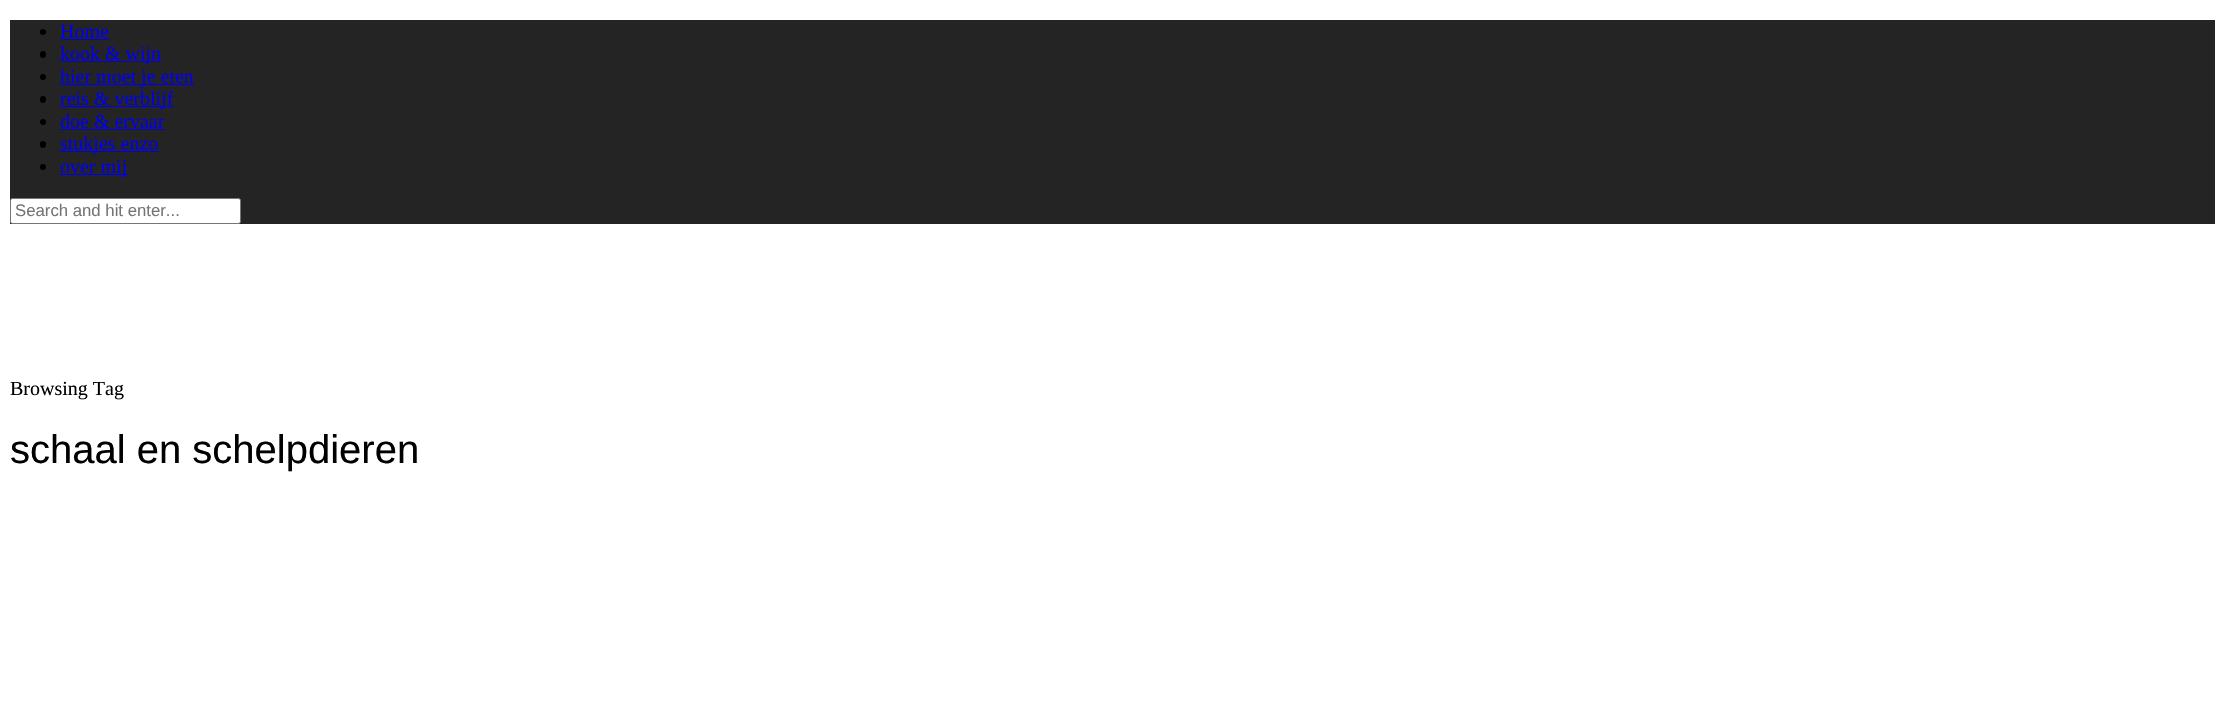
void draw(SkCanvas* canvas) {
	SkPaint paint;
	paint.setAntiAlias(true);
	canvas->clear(0xffffffff);
	paint.setColor(0xff242424);
	canvas->drawRect(SkRect::MakeXYWH(10, 20, 2205, 204), paint);
	paint.setColor(0xff000000);
	canvas->drawCircle(43, 32, 3, paint);
	SkFont f1(fontMgr->matchFamilyStyle("Liberation Serif", SkFontStyle::Normal()), 20);
	f1.setSubpixel(true);
	paint.setColor(0xff0000ee);
	canvas->drawString("Home", 60, 38, f1, paint);
	canvas->drawRect(SkRect::MakeXYWH(60, 39, 49, 1), paint);
	paint.setColor(0xff000000);
	canvas->drawRoundRect(SkRect::MakeXYWH(40, 51, 6, 7), 3, 3, paint);
	paint.setColor(0xff0000ee);
	canvas->drawRect(SkRect::MakeXYWH(60, 61, 101, 1), paint);
	canvas->drawString("kook & wijn", 60, 60, f1, paint);
	paint.setColor(0xff000000);
	canvas->drawCircle(43, 77, 3, paint);
	paint.setColor(0xff0000ee);
	canvas->drawRect(SkRect::MakeXYWH(60, 84, 134, 1), paint);
	canvas->drawString("hier moet je eten", 60, 83, f1, paint);
	paint.setColor(0xff000000);
	canvas->drawRoundRect(SkRect::MakeXYWH(40, 96, 6, 7), 3, 3, paint);
	paint.setColor(0xff0000ee);
	canvas->drawRect(SkRect::MakeXYWH(60, 106, 114, 1), paint);
	canvas->drawString("reis & verblijf", 60, 105, f1, paint);
	paint.setColor(0xff000000);
	canvas->drawCircle(43, 122, 3, paint);
	paint.setColor(0xff0000ee);
	canvas->drawString("doe & ervaar", 60, 128, f1, paint);
	canvas->drawRect(SkRect::MakeXYWH(60, 129, 105, 1), paint);
	paint.setColor(0xff000000);
	canvas->drawRoundRect(SkRect::MakeXYWH(40, 141, 6, 7), 3, 3, paint);
	paint.setColor(0xff0000ee);
	canvas->drawRect(SkRect::MakeXYWH(60, 151, 99, 1), paint);
	canvas->drawString("stukjes enzo", 60, 150, f1, paint);
	paint.setColor(0xff000000);
	canvas->drawCircle(43, 167, 3, paint);
	paint.setColor(0xff0000ee);
	canvas->drawRect(SkRect::MakeXYWH(60, 174, 68, 1), paint);
	canvas->drawString("over mij", 60, 173, f1, paint);
	paint.setColor(0xffffffff);
	canvas->drawRoundRect(SkRect::MakeXYWH(10.5, 198.5, 230, 25), 2, 2, paint);
	paint.setStroke(true);
	paint.setStrokeWidth(1);
	paint.setColor(0xff767676);
	canvas->drawRoundRect(SkRect::MakeXYWH(10.5, 198.5, 230, 25), 2, 2, paint);
	SkFont f2(fontMgr->matchFamilyStyle("Liberation Sans", SkFontStyle::Normal()), 16.75);
	f2.setSubpixel(true);
	paint.setStroke(false);
	paint.setColor(0xff757575);
	canvas->drawString("Search and hit enter...", 15, 216, f2, paint);
	paint.setColor(0xff000000);
	canvas->drawString("Browsing Tag", 10, 395, f1, paint);
	SkFont f3(fontMgr->matchFamilyStyle("Liberation Sans", SkFontStyle::Normal()), 40);
	f3.setSubpixel(true);
	canvas->drawString("schaal en schelpdieren", 10, 463, f3, paint);
}
